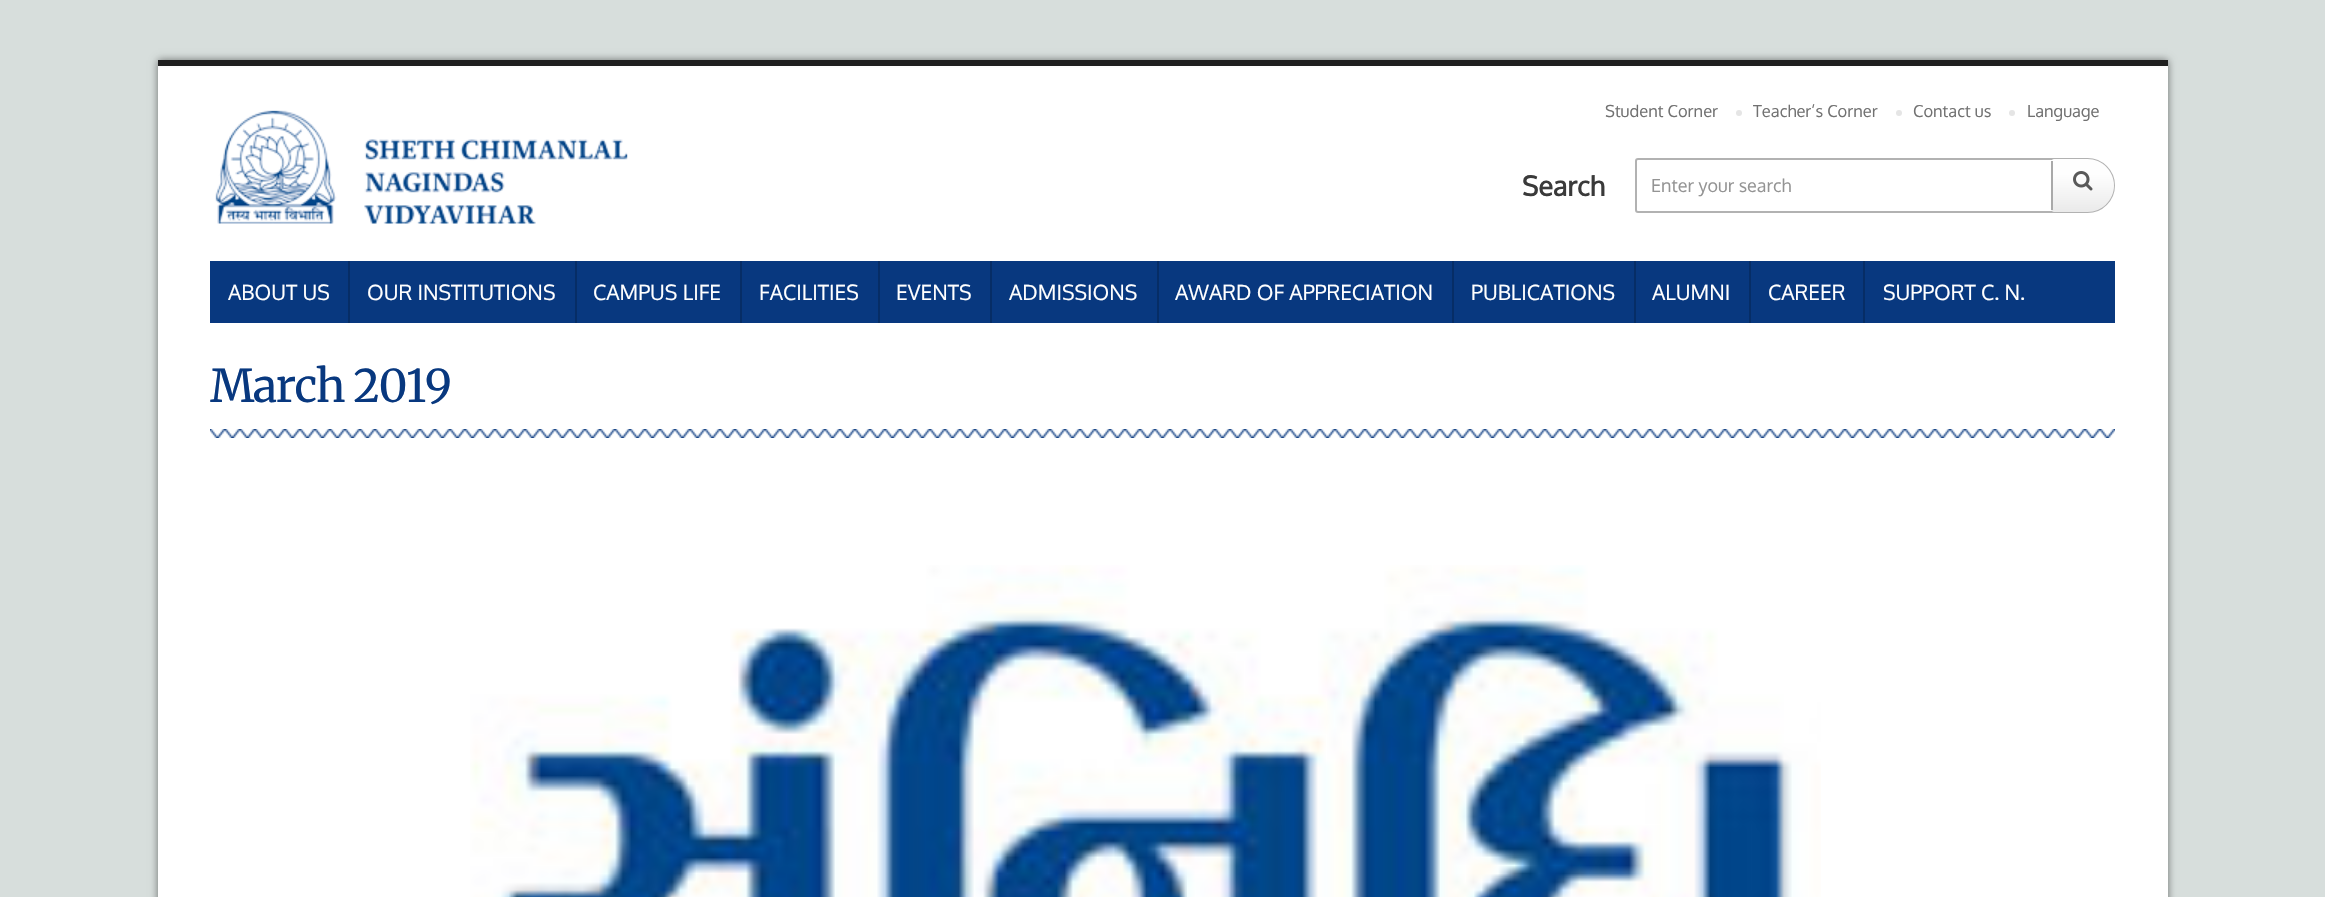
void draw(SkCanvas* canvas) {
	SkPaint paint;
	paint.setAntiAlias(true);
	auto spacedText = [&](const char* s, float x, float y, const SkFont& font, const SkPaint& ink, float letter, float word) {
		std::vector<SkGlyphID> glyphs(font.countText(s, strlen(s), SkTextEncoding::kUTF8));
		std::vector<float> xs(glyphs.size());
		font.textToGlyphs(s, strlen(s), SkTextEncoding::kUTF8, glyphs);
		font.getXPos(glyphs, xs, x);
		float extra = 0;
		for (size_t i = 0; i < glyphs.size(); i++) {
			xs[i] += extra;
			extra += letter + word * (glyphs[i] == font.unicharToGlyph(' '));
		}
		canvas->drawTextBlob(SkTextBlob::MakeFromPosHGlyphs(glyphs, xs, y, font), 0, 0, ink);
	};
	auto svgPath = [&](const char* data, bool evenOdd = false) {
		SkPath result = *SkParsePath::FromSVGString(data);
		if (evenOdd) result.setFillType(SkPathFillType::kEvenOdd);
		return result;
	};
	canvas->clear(0xffd7dedc);
	paint.setColor(0x80000000);
	paint.setMaskFilter(SkMaskFilter::MakeBlur(kNormal_SkBlurStyle, 4));
	canvas->drawRect(SkRect::MakeXYWH(158, 60, 2010, 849), paint);
	paint.setMaskFilter(nullptr);
	paint.setColor(0xffffffff);
	canvas->drawRect(SkRect::MakeXYWH(158, 68, 2010, 829), paint);
	paint.setColor(0xff1f1f1f);
	canvas->drawRect(SkRect::MakeXYWH(158, 60, 2010, 6), paint);
	paint.setColor(0xfffcfcfc);
	canvas->drawRect(SkRect::MakeXYWH(158, 66, 2010, 2), paint);
	canvas->drawImageRect(SkImages::DeferredFromEncodedData(SkData::MakeFromFileName("img1.png")), SkRect::MakeXYWH(215, 110, 413, 114), SkSamplingOptions());
	SkFont f1(fontMgr->matchFamilyStyle("Oxygen", SkFontStyle::Normal()), 16.5);
	f1.setSubpixel(true);
	paint.setColor(0xff717171);
	canvas->drawString("Student Corner", 1605, 117, f1, paint);
	paint.setColor(0xffe5e5e5);
	canvas->drawCircle(1739, 113, 3, paint);
	paint.setColor(0xff717171);
	canvas->drawString("Teacher’s Corner", 1753, 117, f1, paint);
	paint.setColor(0xffe5e5e5);
	canvas->drawCircle(1899, 113, 3, paint);
	paint.setColor(0xff717171);
	canvas->drawString("Contact us", 1913, 117, f1, paint);
	paint.setColor(0xffe5e5e5);
	canvas->drawCircle(2012, 113, 3, paint);
	paint.setColor(0xff717171);
	canvas->drawString("Language", 2027, 117, f1, paint);
	SkFont f2(fontMgr->matchFamilyStyle("Oxygen", SkFontStyle::Bold()), 27);
	f2.setSubpixel(true);
	paint.setColor(0xff3a3a3a);
	canvas->drawString("Search", 1522, 196, f2, paint);
	paint.setStroke(true);
	paint.setStrokeWidth(2);
	paint.setColor(0xffb2b2b2);
	canvas->drawPath(svgPath("M1638 159H2087.5C2102 159 2114 171 2114 185.5C2114 200 2102 212 2087.5 212H1638C1637 212 1636 211 1636 210V161C1636 160 1637 159 1638 159Z"), paint);
	SkFont f3(fontMgr->matchFamilyStyle("Oxygen", SkFontStyle::Normal()), 18);
	f3.setSubpixel(true);
	paint.setStroke(false);
	paint.setColor(0xff949494);
	canvas->drawString("Enter your search", 1651, 192, f3, paint);
	{
		const SkColor colors[] = {0xfffefefe, 0xffeaeaea};
		const float stops[] = {0.29, 1};
		const SkPoint ends[] = {{2083, 159}, {2083, 212}};
		paint.setShader(SkGradientShader::MakeLinear(ends, colors, stops, 2, SkTileMode::kClamp));
		paint.setAlpha(255);
	}
	canvas->drawPath(svgPath("M2054 159H2087.5C2102 159 2114 171 2114 185.5C2114 200 2102 212 2087.5 212H2054C2052.5 212 2051 210.5 2051 209V162C2051 160.5 2052.5 159 2054 159Z"), paint);
	paint.setShader(nullptr);
	paint.setColor(0xffa9a9a9);
	canvas->drawRect(SkRect::MakeXYWH(2051, 161, 2, 49), paint);
	canvas->drawImageRect(SkImages::DeferredFromEncodedData(SkData::MakeFromFileName("img2.png")), SkRect::MakeXYWH(2073, 171, 20, 20), SkSamplingOptions());
	paint.setColor(0xff08387f);
	canvas->drawRect(SkRect::MakeXYWH(210, 261, 1905, 62), paint);
	paint.setColor(0xff062d66);
	canvas->drawRect(SkRect::MakeXYWH(348, 261, 2, 62), paint);
	SkFont f4(fontMgr->matchFamilyStyle("Oxygen", SkFontStyle::Normal()), 21);
	f4.setSubpixel(true);
	paint.setColor(0xffffffff);
	canvas->drawString("ABOUT US", 228, 300, f4, paint);
	paint.setColor(0xff062d66);
	canvas->drawRect(SkRect::MakeXYWH(575, 261, 2, 62), paint);
	paint.setColor(0xffffffff);
	canvas->drawString("OUR INSTITUTIONS", 367, 300, f4, paint);
	paint.setColor(0xff062d66);
	canvas->drawRect(SkRect::MakeXYWH(740, 261, 2, 62), paint);
	paint.setColor(0xffffffff);
	canvas->drawString("CAMPUS LIFE", 593, 300, f4, paint);
	paint.setColor(0xff062d66);
	canvas->drawRect(SkRect::MakeXYWH(878, 261, 2, 62), paint);
	paint.setColor(0xffffffff);
	canvas->drawString("FACILITIES", 759, 300, f4, paint);
	paint.setColor(0xff062d66);
	canvas->drawRect(SkRect::MakeXYWH(990, 261, 2, 62), paint);
	paint.setColor(0xffffffff);
	canvas->drawString("EVENTS", 896, 300, f4, paint);
	paint.setColor(0xff062d66);
	canvas->drawRect(SkRect::MakeXYWH(1157, 261, 2, 62), paint);
	paint.setColor(0xffffffff);
	canvas->drawString("ADMISSIONS", 1009, 300, f4, paint);
	paint.setColor(0xff062d66);
	canvas->drawRect(SkRect::MakeXYWH(1452, 261, 2, 62), paint);
	paint.setColor(0xffffffff);
	canvas->drawString("AWARD OF APPRECIATION", 1175, 300, f4, paint);
	paint.setColor(0xff062d66);
	canvas->drawRect(SkRect::MakeXYWH(1634, 261, 2, 62), paint);
	paint.setColor(0xffffffff);
	canvas->drawString("PUBLICATIONS", 1471, 300, f4, paint);
	paint.setColor(0xff062d66);
	canvas->drawRect(SkRect::MakeXYWH(1749, 261, 2, 62), paint);
	paint.setColor(0xffffffff);
	canvas->drawString("ALUMNI", 1652, 300, f4, paint);
	paint.setColor(0xff062d66);
	canvas->drawRect(SkRect::MakeXYWH(1863, 261, 2, 62), paint);
	paint.setColor(0xffffffff);
	canvas->drawString("CAREER", 1768, 300, f4, paint);
	canvas->drawString("SUPPORT C. N.", 1883, 300, f4, paint);
	SkFont f5(fontMgr->matchFamilyStyle("Merriweather", SkFontStyle(300, SkFontStyle::kNormal_Width, SkFontStyle::kUpright_Slant)), 45);
	f5.setSubpixel(true);
	paint.setColor(0xff08387f);
	spacedText("March 2019", 210, 402, f5, paint, -1.5, 0);
	canvas->drawImageRect(SkImages::DeferredFromEncodedData(SkData::MakeFromFileName("img3.png")), SkRect::MakeXYWH(210, 429, 1905, 9), SkSamplingOptions());
	canvas->drawImageRect(SkImages::DeferredFromEncodedData(SkData::MakeFromFileName("img4.png")), SkRect::MakeXYWH(470, 565, 1351, 332), SkSamplingOptions());
}
